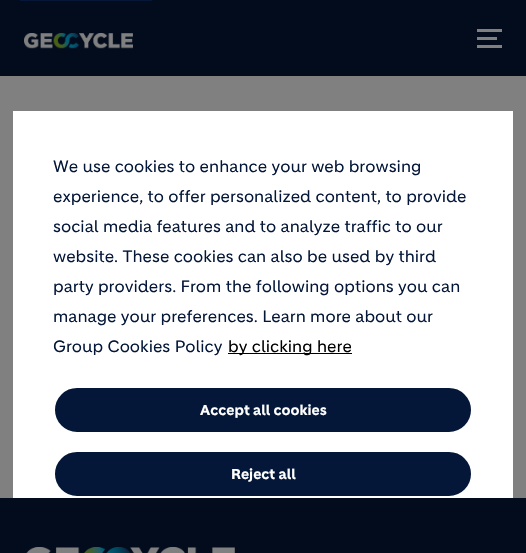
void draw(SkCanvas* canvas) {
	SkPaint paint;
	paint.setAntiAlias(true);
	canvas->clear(0xff808080);
	paint.setColor(0xff020c1d);
	canvas->drawRect(SkRect::MakeXYWH(0, 0, 526, 76), paint);
	canvas->drawImageRect(SkImages::DeferredFromEncodedData(SkData::MakeFromFileName("img1.png")), SkRect::MakeXYWH(24, 33, 109, 16), SkSamplingOptions());
	paint.setColor(0xff808080);
	canvas->drawRect(SkRect::MakeXYWH(477, 29, 25, 3), paint);
	canvas->drawRect(SkRect::MakeXYWH(477, 37, 20, 3), paint);
	canvas->drawRect(SkRect::MakeXYWH(477, 45, 25, 3), paint);
	paint.setColor(0xff020c1d);
	canvas->drawRect(SkRect::MakeXYWH(0, 498, 526, 55), paint);
	canvas->drawImageRect(SkImages::DeferredFromEncodedData(SkData::MakeFromFileName("img2.png")), SkRect::MakeXYWH(26, 547, 209, 6), SkSamplingOptions());
	paint.setColor(0xff041739);
	canvas->drawRect(SkRect::MakeXYWH(20, 0, 132, 1), paint);
	paint.setColor(0xffffffff);
	canvas->drawRect(SkRect::MakeXYWH(13, 111, 500, 387), paint);
	SkFont f1(fontMgr->matchFamilyStyle("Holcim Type", SkFontStyle::Normal()), 16);
	f1.setSubpixel(true);
	paint.setColor(0xff041739);
	canvas->drawString("We use cookies to enhance your web browsing", 53, 172, f1, paint);
	canvas->drawString("experience, to offer personalized content, to provide", 53, 202, f1, paint);
	canvas->drawString("social media features and to analyze traffic to our", 53, 232, f1, paint);
	canvas->drawString("website. These cookies can also be used by third", 53, 262, f1, paint);
	canvas->drawString("party providers. From the following options you can", 53, 292, f1, paint);
	canvas->drawString("manage your preferences. Learn more about our", 53, 322, f1, paint);
	canvas->drawString("Group Cookies Policy", 53, 352, f1, paint);
	paint.setColor(0xff000000);
	canvas->drawRect(SkRect::MakeXYWH(228, 353, 124, 1), paint);
	canvas->drawString("by clicking here", 228, 352, f1, paint);
	paint.setColor(0xff041739);
	canvas->drawRoundRect(SkRect::MakeXYWH(54, 387, 418, 46), 23, 23, paint);
	paint.setStroke(true);
	paint.setStrokeWidth(2);
	paint.setColor(0xffffffff);
	canvas->drawRoundRect(SkRect::MakeXYWH(54, 387, 418, 46), 23, 23, paint);
	SkFont f2(fontMgr->matchFamilyStyle("Holcim Type", SkFontStyle::Bold()), 14);
	f2.setSubpixel(true);
	paint.setStroke(false);
	canvas->drawString("Accept all cookies", 200, 415, f2, paint);
	paint.setColor(0xff041739);
	canvas->drawRoundRect(SkRect::MakeXYWH(54, 451, 418, 46), 23, 23, paint);
	paint.setStroke(true);
	paint.setColor(0xffffffff);
	canvas->drawRoundRect(SkRect::MakeXYWH(54, 451, 418, 46), 23, 23, paint);
	paint.setStroke(false);
	canvas->drawString("Reject all", 231, 479, f2, paint);
}
